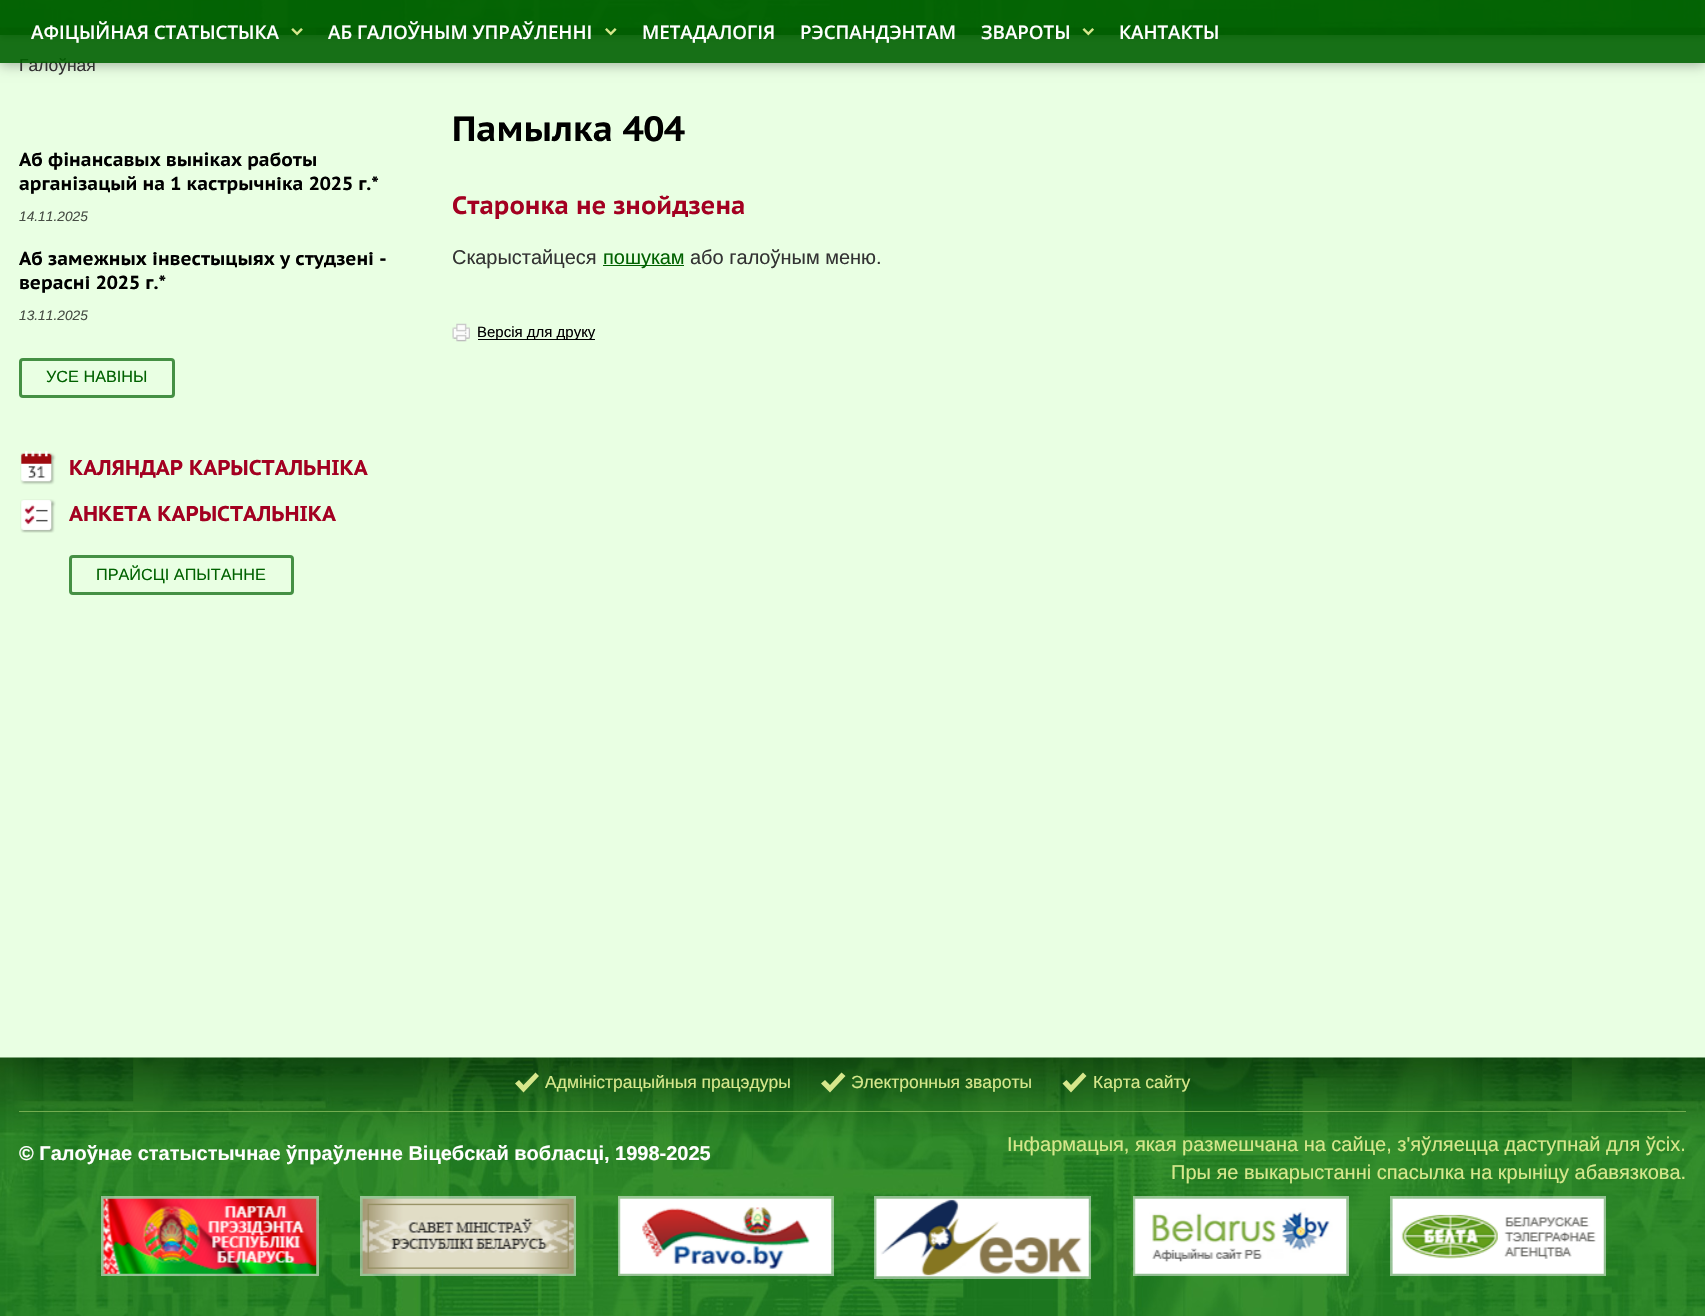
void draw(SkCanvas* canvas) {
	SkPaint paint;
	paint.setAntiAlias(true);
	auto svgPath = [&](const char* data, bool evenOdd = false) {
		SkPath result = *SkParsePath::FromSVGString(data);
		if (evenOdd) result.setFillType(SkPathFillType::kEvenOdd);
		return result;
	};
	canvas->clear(0xffe9ffe3);
	paint.setColor(0x4d000000);
	paint.setMaskFilter(SkMaskFilter::MakeBlur(kNormal_SkBlurStyle, 3));
	canvas->drawRect(SkRect::MakeXYWH(0, -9, 1705, 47), paint);
	paint.setMaskFilter(nullptr);
	canvas->drawImageRect(SkImages::DeferredFromEncodedData(SkData::MakeFromFileName("img1.png")), SkRect::MakeXYWH(0, 0, 1705, 35), SkSamplingOptions());
	canvas->save();
	canvas->clipPath(svgPath("M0 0H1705V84H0ZM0 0H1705V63H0Z", true), true);
	paint.setMaskFilter(SkMaskFilter::MakeBlur(kNormal_SkBlurStyle, 6));
	canvas->drawRect(SkRect::MakeXYWH(0, 3, 1705, 62), paint);
	paint.setMaskFilter(nullptr);
	canvas->restore();
	SkFont f1(fontMgr->matchFamilyStyle("Liberation Sans", SkFontStyle::Normal()), 17.5);
	f1.setSubpixel(true);
	paint.setColor(0xff333333);
	canvas->drawString("Галоўная", 19, 71, f1, paint);
	paint.setColor(0xe6006100);
	canvas->drawRect(SkRect::MakeXYWH(0, 0, 1705, 63), paint);
	SkFont f2(fontMgr->matchFamilyStyle("Open Sans", SkFontStyle(600, SkFontStyle::kNormal_Width, SkFontStyle::kUpright_Slant)), 18.75);
	f2.setSubpixel(true);
	paint.setColor(0xffffffff);
	canvas->drawString("АФІЦЫЙНАЯ СТАТЫСТЫКА", 31, 39, f2, paint);
	canvas->drawImageRect(SkImages::DeferredFromEncodedData(SkData::MakeFromFileName("img2.png")), SkRect::MakeXYWH(291, 28, 12, 8), SkSamplingOptions());
	canvas->drawString("АБ ГАЛОЎНЫМ УПРАЎЛЕННІ", 328, 39, f2, paint);
	canvas->drawImageRect(SkImages::DeferredFromEncodedData(SkData::MakeFromFileName("img3.png")), SkRect::MakeXYWH(605, 28, 12, 8), SkSamplingOptions());
	canvas->drawString("МЕТАДАЛОГІЯ", 642, 39, f2, paint);
	canvas->drawString("РЭСПАНДЭНТАМ", 800, 39, f2, paint);
	canvas->drawString("ЗВАРОТЫ", 981, 39, f2, paint);
	canvas->drawImageRect(SkImages::DeferredFromEncodedData(SkData::MakeFromFileName("img4.png")), SkRect::MakeXYWH(1082, 28, 12, 8), SkSamplingOptions());
	canvas->drawString("КАНТАКТЫ", 1119, 39, f2, paint);
	SkFont f3(fontMgr->matchFamilyStyle("PT Sans Caption", SkFontStyle::Bold()), 18.75);
	f3.setSubpixel(true);
	paint.setColor(0xff000000);
	canvas->drawString("Аб фiнансавых вынiках работы", 19, 166, f3, paint);
	canvas->drawString("арганiзацый на 1 кастрычніка 2025 г.*", 19, 190, f3, paint);
	SkFont f4(fontMgr->matchFamilyStyle("Liberation Sans", SkFontStyle::Italic()), 13.75);
	f4.setSubpixel(true);
	paint.setColor(0xff464d44);
	canvas->drawString("14.11.2025", 19, 221, f4, paint);
	paint.setColor(0xff000000);
	canvas->drawString("Аб замежных інвестыцыях у студзені -", 19, 265, f3, paint);
	canvas->drawString("верасні 2025 г.*", 19, 289, f3, paint);
	paint.setColor(0xff464d44);
	canvas->drawString("13.11.2025", 19, 320, f4, paint);
	paint.setStroke(true);
	paint.setStrokeWidth(3);
	paint.setColor(0xff459044);
	canvas->drawRoundRect(SkRect::MakeXYWH(20.5, 359.5, 153, 37), 2.5, 2.5, paint);
	SkFont f5(fontMgr->matchFamilyStyle("Liberation Sans", SkFontStyle::Normal()), 16.25);
	f5.setSubpixel(true);
	paint.setStroke(false);
	paint.setColor(0xff006100);
	canvas->drawString("УСЕ НАВІНЫ", 46, 382, f5, paint);
	canvas->drawImageRect(SkImages::DeferredFromEncodedData(SkData::MakeFromFileName("img5.png")), SkRect::MakeXYWH(20, 451, 36, 34), SkSamplingOptions());
	SkFont f6(fontMgr->matchFamilyStyle("PT Sans Caption", SkFontStyle::Bold()), 21.25);
	f6.setSubpixel(true);
	paint.setColor(0xffa30021);
	canvas->drawString("КАЛЯНДАР КАРЫСТАЛЬНІКА", 69, 475, f6, paint);
	canvas->drawImageRect(SkImages::DeferredFromEncodedData(SkData::MakeFromFileName("img6.png")), SkRect::MakeXYWH(20, 499, 36, 34), SkSamplingOptions());
	canvas->drawString("АНКЕТА КАРЫСТАЛЬНІКА", 69, 521, f6, paint);
	paint.setStroke(true);
	paint.setColor(0xff459044);
	canvas->drawRoundRect(SkRect::MakeXYWH(70.5, 556.5, 222, 37), 2.5, 2.5, paint);
	paint.setStroke(false);
	paint.setColor(0xff006100);
	canvas->drawString("ПРАЙСЦІ АПЫТАННЕ", 96, 580, f5, paint);
	SkFont f7(fontMgr->matchFamilyStyle("PT Sans Caption", SkFontStyle::Bold()), 35);
	f7.setSubpixel(true);
	paint.setColor(0xff000000);
	canvas->drawString("Памылка 404", 452, 141, f7, paint);
	SkFont f8(fontMgr->matchFamilyStyle("PT Sans Caption", SkFontStyle::Bold()), 25);
	f8.setSubpixel(true);
	paint.setColor(0xffa30021);
	canvas->drawString("Старонка не знойдзена", 452, 214, f8, paint);
	SkFont f9(fontMgr->matchFamilyStyle("Liberation Sans", SkFontStyle::Normal()), 20);
	f9.setSubpixel(true);
	paint.setColor(0xff333333);
	canvas->drawString("Скарыстайцеся", 452, 264, f9, paint);
	paint.setColor(0xff006100);
	canvas->drawRect(SkRect::MakeXYWH(603, 265, 81, 1), paint);
	canvas->drawString("пошукам", 603, 264, f9, paint);
	paint.setColor(0xff333333);
	canvas->drawString("або галоўным меню.", 690, 264, f9, paint);
	canvas->drawImageRect(SkImages::DeferredFromEncodedData(SkData::MakeFromFileName("img7.png")), SkRect::MakeXYWH(452, 323, 18, 19), SkSamplingOptions());
	paint.setColor(0xff000000);
	canvas->drawRect(SkRect::MakeXYWH(478, 339, 117, 1), paint);
	SkFont f10(fontMgr->matchFamilyStyle("Liberation Sans", SkFontStyle::Normal()), 15);
	f10.setSubpixel(true);
	canvas->drawString("Версія для друку", 477, 337, f10, paint);
	canvas->drawImageRect(SkImages::DeferredFromEncodedData(SkData::MakeFromFileName("img8.png")), SkRect::MakeXYWH(0, 1057, 1705, 259), SkSamplingOptions());
	paint.setColor(0xff73ac50);
	canvas->drawRect(SkRect::MakeXYWH(19, 1111, 1667, 1), paint);
	paint.setColor(0xffd6e78b);
	canvas->drawPath(svgPath("M523.5 1092.5L515 1083.5L519 1080L523.5 1085L535.5 1072.5L539 1076Z"), paint);
	canvas->drawString("Адміністрацыйныя працэдуры", 545, 1088, f1, paint);
	canvas->drawPath(svgPath("M830 1092.5L821 1083.5L825 1080L830 1085L841.5 1072.5L845.5 1076Z"), paint);
	canvas->drawString("Электронныя звароты", 851, 1088, f1, paint);
	canvas->drawPath(svgPath("M1071 1092.5L1062.5 1083.5L1066.5 1080L1071 1085L1083 1072.5L1086.5 1076Z"), paint);
	canvas->drawString("Карта сайту", 1093, 1088, f1, paint);
	SkFont f11(fontMgr->matchFamilyStyle("Liberation Sans", SkFontStyle::Bold()), 20);
	f11.setSubpixel(true);
	paint.setColor(0xffffffff);
	canvas->drawString("© Галоўнае статыстычнае ўпраўленне Віцебскай вобласці, 1998-2025", 19, 1160, f11, paint);
	paint.setColor(0xffd6e78b);
	canvas->drawString("Інфармацыя, якая размешчана на сайце, з'яўляецца даступнай для ўсiх.", 1007, 1151, f9, paint);
	canvas->drawString("Пры яе выкарыстанні спасылка на крыніцу абавязкова.", 1171, 1179, f9, paint);
	paint.setStroke(true);
	paint.setColor(0x80ffffff);
	canvas->drawRect(SkRect::MakeXYWH(102.5, 1197.5, 215, 77), paint);
	canvas->drawImageRect(SkImages::DeferredFromEncodedData(SkData::MakeFromFileName("img9.png")), SkRect::MakeXYWH(103, 1198, 214, 76), SkSamplingOptions());
	canvas->drawRect(SkRect::MakeXYWH(361.5, 1197.5, 213, 77), paint);
	canvas->drawImageRect(SkImages::DeferredFromEncodedData(SkData::MakeFromFileName("img10.png")), SkRect::MakeXYWH(361, 1198, 213, 76), SkSamplingOptions());
	canvas->drawRect(SkRect::MakeXYWH(619.5, 1197.5, 213, 77), paint);
	canvas->drawImageRect(SkImages::DeferredFromEncodedData(SkData::MakeFromFileName("img11.png")), SkRect::MakeXYWH(619, 1198, 213, 76), SkSamplingOptions());
	canvas->drawRect(SkRect::MakeXYWH(875.5, 1197.5, 214, 80), paint);
	canvas->drawImageRect(SkImages::DeferredFromEncodedData(SkData::MakeFromFileName("img12.png")), SkRect::MakeXYWH(875, 1198, 214, 79), SkSamplingOptions());
	canvas->drawRect(SkRect::MakeXYWH(1134.5, 1197.5, 213, 77), paint);
	canvas->drawImageRect(SkImages::DeferredFromEncodedData(SkData::MakeFromFileName("img13.png")), SkRect::MakeXYWH(1134, 1198, 213, 76), SkSamplingOptions());
	canvas->drawRect(SkRect::MakeXYWH(1391.5, 1197.5, 213, 77), paint);
	canvas->drawImageRect(SkImages::DeferredFromEncodedData(SkData::MakeFromFileName("img14.png")), SkRect::MakeXYWH(1391, 1198, 213, 76), SkSamplingOptions());
}
